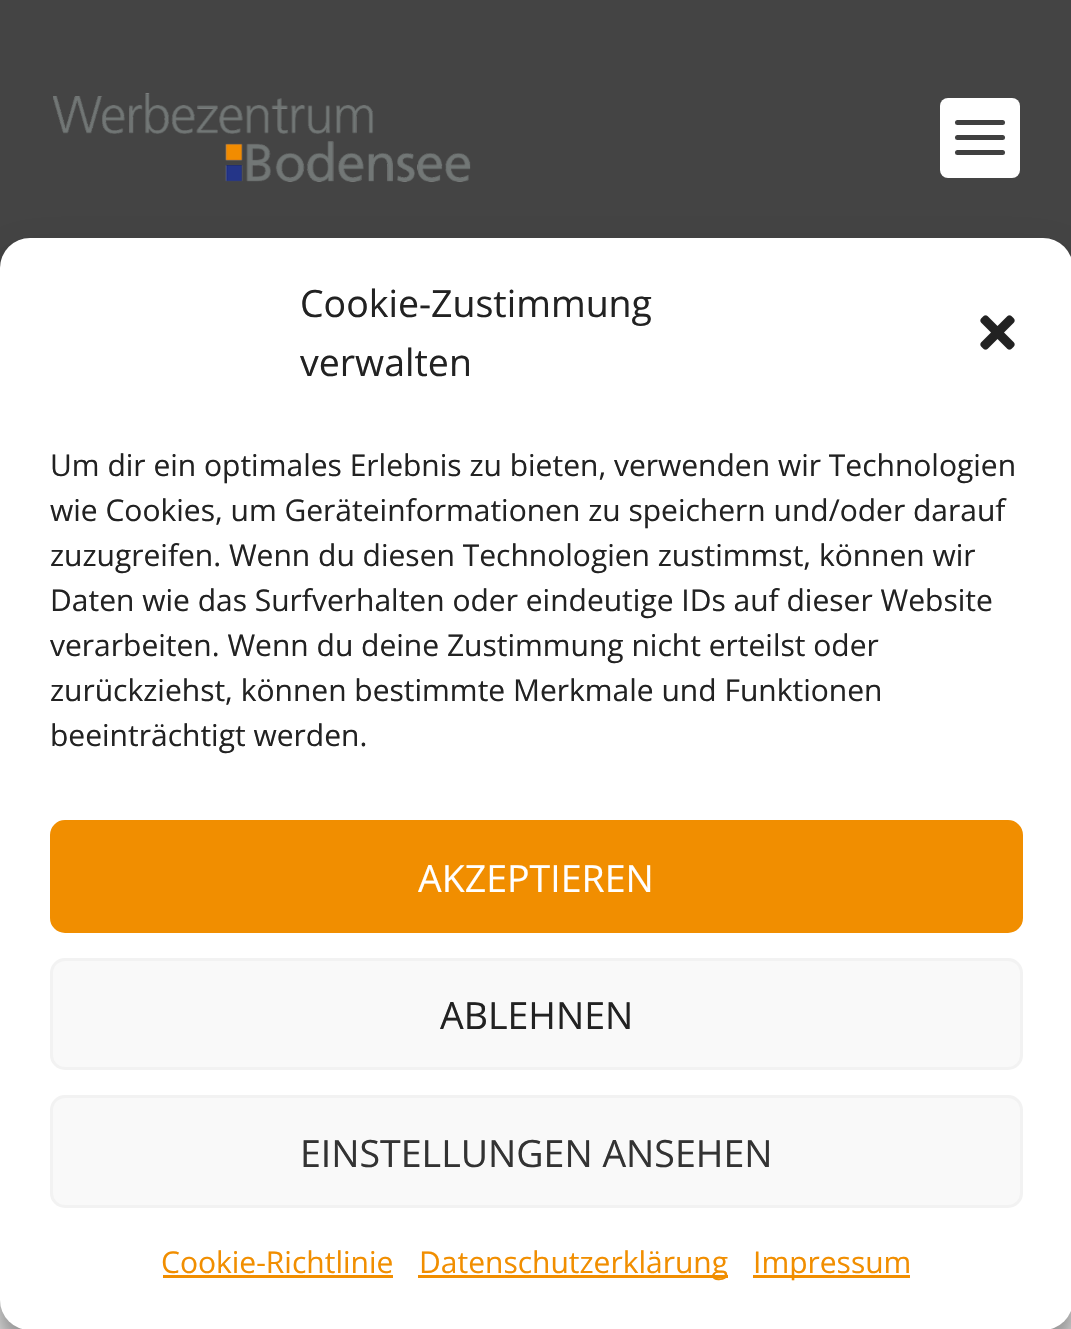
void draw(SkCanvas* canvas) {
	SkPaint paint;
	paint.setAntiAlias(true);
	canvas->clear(0xffffffff);
	canvas->drawImageRect(SkImages::DeferredFromEncodedData(SkData::MakeFromFileName("img1.png")), SkRect::MakeXYWH(0, 1300, 1071, 29), SkSamplingOptions());
	paint.setColor(0xff444444);
	canvas->drawRect(SkRect::MakeXYWH(0, 0, 1071, 268), paint);
	canvas->drawImageRect(SkImages::DeferredFromEncodedData(SkData::MakeFromFileName("img2.png")), SkRect::MakeXYWH(53, 93, 418, 89), SkSamplingOptions());
	paint.setColor(0xffffffff);
	canvas->drawRoundRect(SkRect::MakeXYWH(940, 98, 80, 80), 8, 8, paint);
	paint.setColor(0xff404040);
	canvas->drawRoundRect(SkRect::MakeXYWH(955, 120, 50, 5), 2.5, 2.5, paint);
	canvas->drawRoundRect(SkRect::MakeXYWH(955, 135, 50, 5), 2.5, 2.5, paint);
	canvas->drawRoundRect(SkRect::MakeXYWH(955, 150, 50, 5), 2.5, 2.5, paint);
	paint.setColor(0x3b000000);
	paint.setMaskFilter(SkMaskFilter::MakeBlur(kNormal_SkBlurStyle, 7.5));
	canvas->drawRoundRect(SkRect::MakeXYWH(0, 253, 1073, 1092), 30, 30, paint);
	paint.setMaskFilter(nullptr);
	paint.setColor(0x30000000);
	paint.setMaskFilter(SkMaskFilter::MakeBlur(kNormal_SkBlurStyle, 25));
	canvas->drawRoundRect(SkRect::MakeXYWH(0, 263, 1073, 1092), 30, 30, paint);
	paint.setMaskFilter(nullptr);
	paint.setColor(0xffffffff);
	canvas->drawRoundRect(SkRect::MakeXYWH(0, 238, 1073, 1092), 30, 30, paint);
	SkFont f1(fontMgr->matchFamilyStyle("Open Sans", SkFontStyle::Normal()), 37.5);
	f1.setSubpixel(true);
	paint.setColor(0xff222222);
	canvas->drawString("Cookie-Zustimmung", 300, 317, f1, paint);
	canvas->drawString("verwalten", 300, 376, f1, paint);
	canvas->drawImageRect(SkImages::DeferredFromEncodedData(SkData::MakeFromFileName("img3.png")), SkRect::MakeXYWH(980, 315, 35, 35), SkSamplingOptions());
	SkFont f2(fontMgr->matchFamilyStyle("Open Sans", SkFontStyle::Normal()), 30);
	f2.setSubpixel(true);
	canvas->drawString("Um dir ein optimales Erlebnis zu bieten, verwenden wir Technologien", 50, 476, f2, paint);
	canvas->drawString("wie Cookies, um Geräteinformationen zu speichern und/oder darauf", 50, 521, f2, paint);
	canvas->drawString("zuzugreifen. Wenn du diesen Technologien zustimmst, können wir", 50, 566, f2, paint);
	canvas->drawString("Daten wie das Surfverhalten oder eindeutige IDs auf dieser Website", 50, 611, f2, paint);
	canvas->drawString("verarbeiten. Wenn du deine Zustimmung nicht erteilst oder", 50, 656, f2, paint);
	canvas->drawString("zurückziehst, können bestimmte Merkmale und Funktionen", 50, 701, f2, paint);
	canvas->drawString("beeinträchtigt werden.", 50, 746, f2, paint);
	paint.setColor(0xfff18e00);
	canvas->drawRoundRect(SkRect::MakeXYWH(51.5, 821.5, 970, 110), 13.5, 13.5, paint);
	paint.setStroke(true);
	paint.setStrokeWidth(3);
	canvas->drawRoundRect(SkRect::MakeXYWH(51.5, 821.5, 970, 110), 13.5, 13.5, paint);
	paint.setStroke(false);
	paint.setColor(0xffffffff);
	canvas->drawString("AKZEPTIEREN", 418, 892, f1, paint);
	paint.setColor(0xfff9f9f9);
	canvas->drawRoundRect(SkRect::MakeXYWH(51.5, 959.5, 970, 109), 13.5, 13.5, paint);
	paint.setStroke(true);
	paint.setColor(0xfff2f2f2);
	canvas->drawRoundRect(SkRect::MakeXYWH(51.5, 959.5, 970, 109), 13.5, 13.5, paint);
	paint.setStroke(false);
	paint.setColor(0xff222222);
	canvas->drawString("ABLEHNEN", 440, 1029, f1, paint);
	paint.setColor(0xfff9f9f9);
	canvas->drawRoundRect(SkRect::MakeXYWH(51.5, 1096.5, 970, 110), 13.5, 13.5, paint);
	paint.setStroke(true);
	paint.setColor(0xfff2f2f2);
	canvas->drawRoundRect(SkRect::MakeXYWH(51.5, 1096.5, 970, 110), 13.5, 13.5, paint);
	paint.setStroke(false);
	paint.setColor(0xff333333);
	canvas->drawString("EINSTELLUNGEN ANSEHEN", 300, 1167, f1, paint);
	paint.setColor(0xfff18e00);
	canvas->drawString("Cookie-Richtlinie", 161, 1273, f2, paint);
	canvas->drawRect(SkRect::MakeXYWH(163, 1275, 230, 3), paint);
	canvas->drawRect(SkRect::MakeXYWH(418, 1275, 310, 3), paint);
	canvas->drawString("Datenschutzerklärung", 419, 1273, f2, paint);
	canvas->drawRect(SkRect::MakeXYWH(753, 1275, 157, 3), paint);
	canvas->drawString("Impressum", 753, 1273, f2, paint);
}
